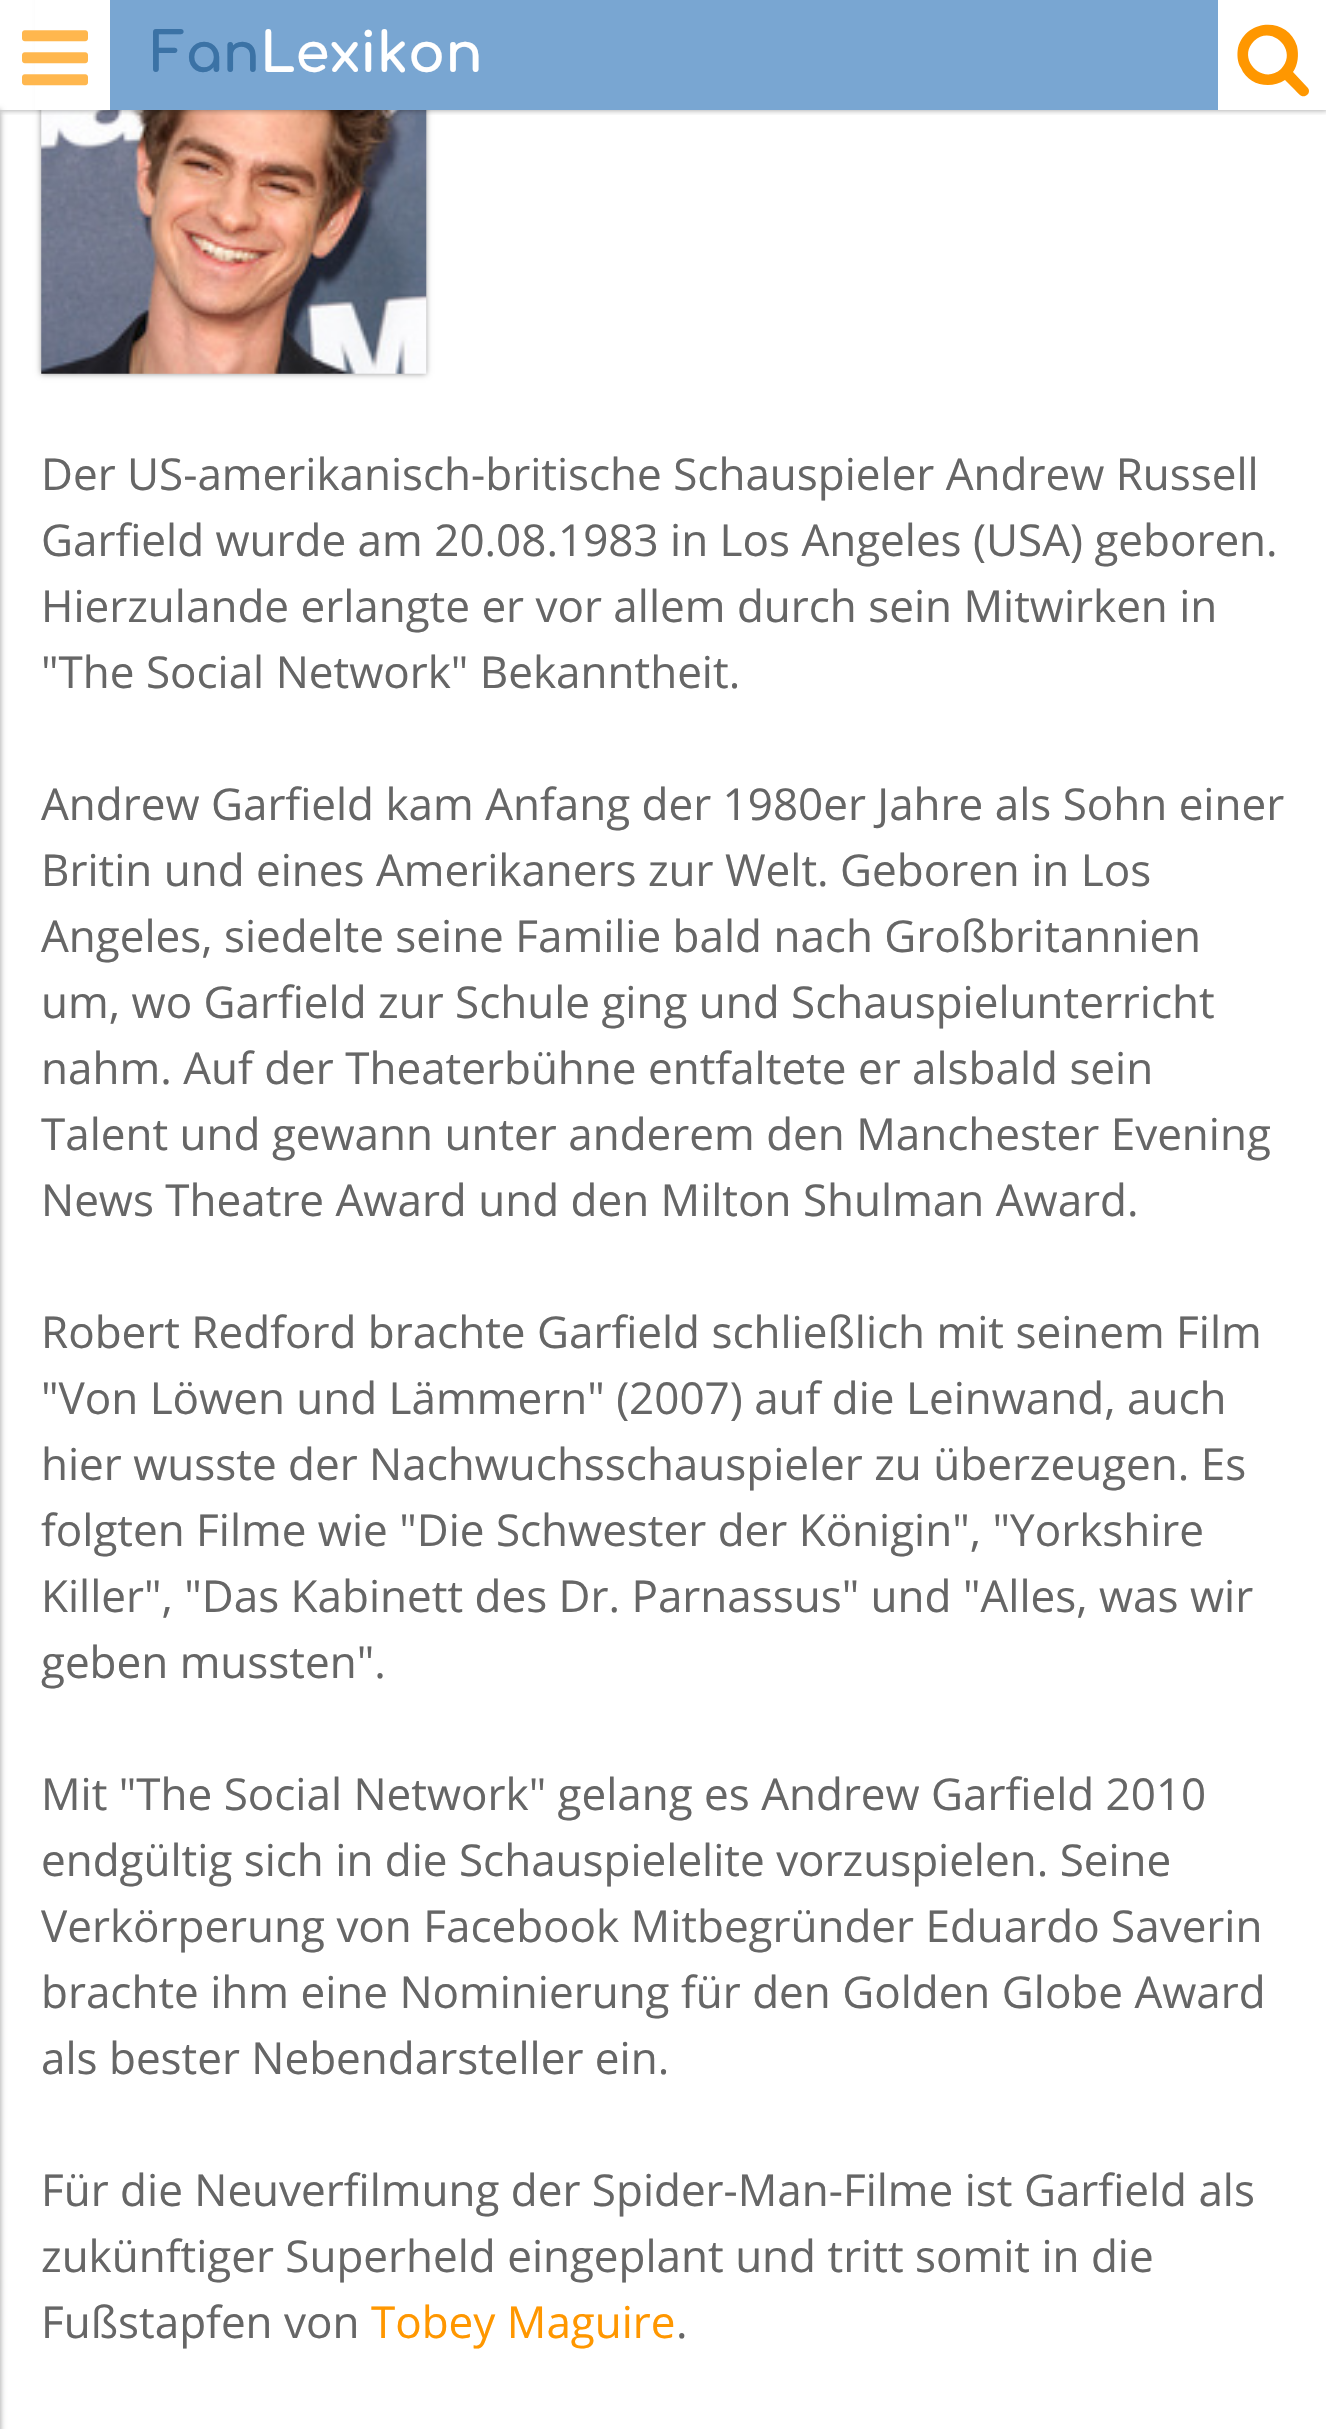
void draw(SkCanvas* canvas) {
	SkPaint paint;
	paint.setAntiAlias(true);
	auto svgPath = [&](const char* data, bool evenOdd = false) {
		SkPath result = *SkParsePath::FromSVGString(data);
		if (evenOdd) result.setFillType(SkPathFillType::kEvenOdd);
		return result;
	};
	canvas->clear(0xffffffff);
	paint.setColor(0x66000000);
	paint.setMaskFilter(SkMaskFilter::MakeBlur(kNormal_SkBlurStyle, 3));
	canvas->drawRect(SkRect::MakeXYWH(41, -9, 385, 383), paint);
	paint.setMaskFilter(nullptr);
	paint.setColor(0xff79a6d2);
	canvas->drawRect(SkRect::MakeXYWH(110, 0, 1108, 110), paint);
	canvas->drawImageRect(SkImages::DeferredFromEncodedData(SkData::MakeFromFileName("img2.png")), SkRect::MakeXYWH(41, 110, 386, 264), SkSamplingOptions());
	canvas->save();
	canvas->clipRect(SkRect::MakeXYWH(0, 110, 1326, 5));
	paint.setColor(0x66000000);
	paint.setMaskFilter(SkMaskFilter::MakeBlur(kNormal_SkBlurStyle, 3));
	canvas->drawRect(SkRect::MakeXYWH(0, 0, 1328, 110), paint);
	paint.setMaskFilter(nullptr);
	canvas->restore();
	paint.setColor(0xffffffff);
	canvas->drawRect(SkRect::MakeXYWH(35, 0, 75, 110), paint);
	canvas->drawImageRect(SkImages::DeferredFromEncodedData(SkData::MakeFromFileName("img1.png")), SkRect::MakeXYWH(22, 30, 66, 56), SkSamplingOptions());
	SkFont f1(fontMgr->matchFamilyStyle("Comfortaa", SkFontStyle::Bold()), 55);
	f1.setSubpixel(true);
	paint.setColor(0xff3b72a5);
	canvas->drawString("Fan", 151, 72, f1, paint);
	paint.setColor(0xffffffff);
	canvas->drawString("Lexikon", 260, 72, f1, paint);
	paint.setColor(0xffff9700);
	canvas->drawPath(svgPath("M1281 69C1299 51 1272 24 1254 41C1236 59 1263 86 1281 69ZM1309 91C1309 93 1308 94 1307 95C1302 99 1298 93 1295 90L1285 80C1270 90 1248 85 1241 68C1237 62 1237 54 1238 48C1246 18 1288 17 1297 46C1299 55 1298 65 1293 72L1307 87C1308 88 1309 89 1309 91Z"), paint);
	paint.setColor(0x66000000);
	paint.setMaskFilter(SkMaskFilter::MakeBlur(kNormal_SkBlurStyle, 3));
	canvas->drawRect(SkRect::MakeXYWH(-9, 110, 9, 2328), paint);
	paint.setMaskFilter(nullptr);
	SkFont f2(fontMgr->matchFamilyStyle("Open Sans", SkFontStyle::Normal()), 44);
	f2.setSubpixel(true);
	paint.setColor(0xff666666);
	canvas->drawString("Der US-amerikanisch-britische Schauspieler Andrew Russell", 41, 490, f2, paint);
	canvas->drawString("Garfield wurde am 20.08.1983 in Los Angeles (USA) geboren.", 41, 556, f2, paint);
	canvas->drawString("Hierzulande erlangte er vor allem durch sein Mitwirken in", 41, 622, f2, paint);
	canvas->drawString("\"The Social Network\" Bekanntheit.", 41, 688, f2, paint);
	canvas->drawString("Andrew Garfield kam Anfang der 1980er Jahre als Sohn einer", 41, 820, f2, paint);
	canvas->drawString("Britin und eines Amerikaners zur Welt. Geboren in Los", 41, 886, f2, paint);
	canvas->drawString("Angeles, siedelte seine Familie bald nach Großbritannien", 41, 952, f2, paint);
	canvas->drawString("um, wo Garfield zur Schule ging und Schauspielunterricht", 41, 1018, f2, paint);
	canvas->drawString("nahm. Auf der Theaterbühne entfaltete er alsbald sein", 41, 1084, f2, paint);
	canvas->drawString("Talent und gewann unter anderem den Manchester Evening", 41, 1150, f2, paint);
	canvas->drawString("News Theatre Award und den Milton Shulman Award.", 41, 1216, f2, paint);
	canvas->drawString("Robert Redford brachte Garfield schließlich mit seinem Film", 41, 1348, f2, paint);
	canvas->drawString("\"Von Löwen und Lämmern\" (2007) auf die Leinwand, auch", 41, 1414, f2, paint);
	canvas->drawString("hier wusste der Nachwuchsschauspieler zu überzeugen. Es", 41, 1480, f2, paint);
	canvas->drawString("folgten Filme wie \"Die Schwester der Königin\", \"Yorkshire", 41, 1546, f2, paint);
	canvas->drawString("Killer\", \"Das Kabinett des Dr. Parnassus\" und \"Alles, was wir", 41, 1612, f2, paint);
	canvas->drawString("geben mussten\".", 41, 1678, f2, paint);
	canvas->drawString("Mit \"The Social Network\" gelang es Andrew Garfield 2010", 41, 1810, f2, paint);
	canvas->drawString("endgültig sich in die Schauspielelite vorzuspielen. Seine", 41, 1876, f2, paint);
	canvas->drawString("Verkörperung von Facebook Mitbegründer Eduardo Saverin", 41, 1942, f2, paint);
	canvas->drawString("brachte ihm eine Nominierung für den Golden Globe Award", 41, 2008, f2, paint);
	canvas->drawString("als bester Nebendarsteller ein.", 41, 2074, f2, paint);
	canvas->drawString("Für die Neuverfilmung der Spider-Man-Filme ist Garfield als", 41, 2206, f2, paint);
	canvas->drawString("zukünftiger Superheld eingeplant und tritt somit in die", 41, 2272, f2, paint);
	canvas->drawString("Fußstapfen von", 41, 2338, f2, paint);
	paint.setColor(0xffff9700);
	canvas->drawString("Tobey Maguire", 371, 2338, f2, paint);
	paint.setColor(0xff666666);
	canvas->drawString(".", 676, 2338, f2, paint);
}
